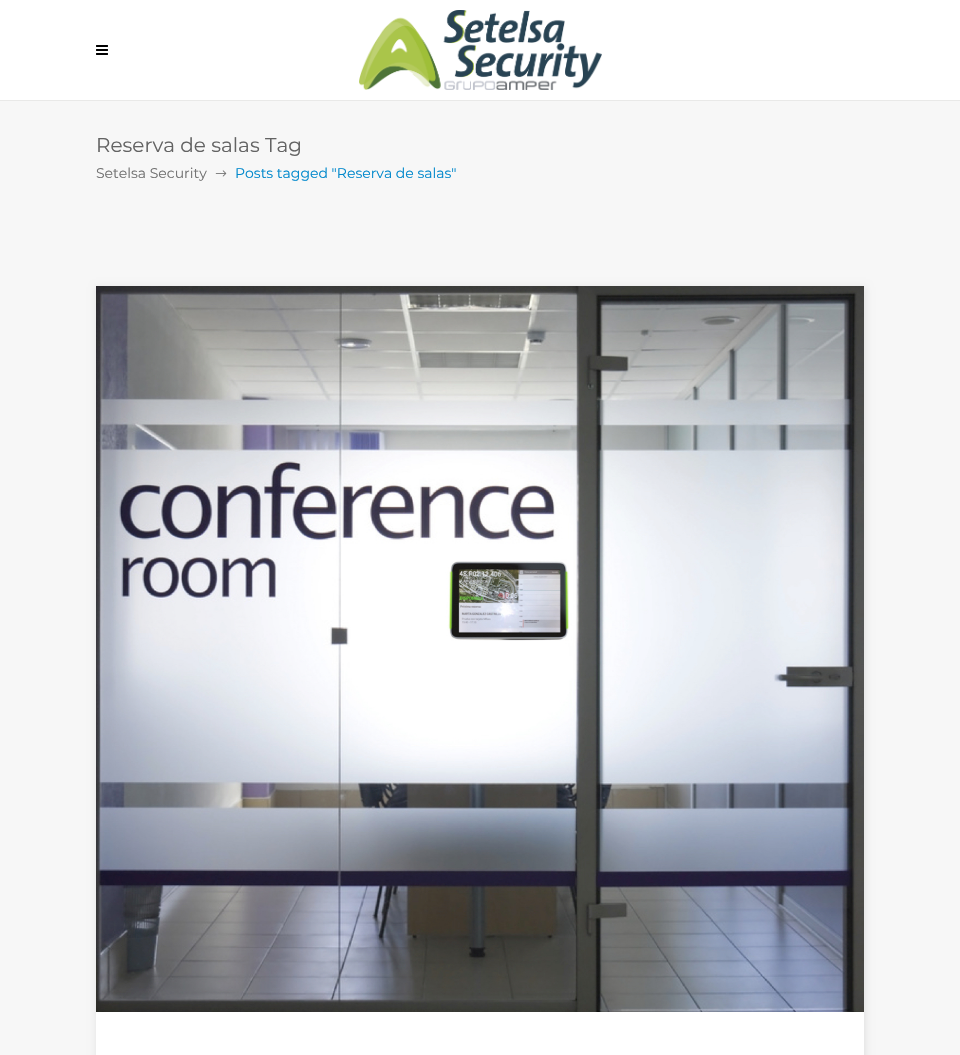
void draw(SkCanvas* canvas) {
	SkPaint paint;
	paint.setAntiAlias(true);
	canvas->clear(0xfff7f7f7);
	paint.setColor(0xffe9e9e8);
	canvas->drawRect(SkRect::MakeXYWH(0, 100, 960, 1), paint);
	paint.setColor(0xffffffff);
	canvas->drawRect(SkRect::MakeXYWH(0, 0, 960, 100), paint);
	canvas->drawImageRect(SkImages::DeferredFromEncodedData(SkData::MakeFromFileName("img1.png")), SkRect::MakeXYWH(96, 45, 12, 10), SkSamplingOptions());
	canvas->drawImageRect(SkImages::DeferredFromEncodedData(SkData::MakeFromFileName("img2.png")), SkRect::MakeXYWH(359, 10, 243, 80), SkSamplingOptions());
	SkFont f1(fontMgr->matchFamilyStyle("Montserrat", SkFontStyle::Normal()), 20);
	f1.setSubpixel(true);
	paint.setColor(0xff636363);
	canvas->drawString("Reserva de salas Tag", 96, 152, f1, paint);
	SkFont f2(fontMgr->matchFamilyStyle("Montserrat", SkFontStyle::Normal()), 14);
	f2.setSubpixel(true);
	paint.setColor(0xff727272);
	canvas->drawString("Setelsa Security", 96, 178, f2, paint);
	canvas->drawImageRect(SkImages::DeferredFromEncodedData(SkData::MakeFromFileName("img3.png")), SkRect::MakeXYWH(215, 170, 12, 7), SkSamplingOptions());
	paint.setColor(0xff0088cc);
	canvas->drawString("Posts tagged \"Reserva de salas\"", 235, 178, f2, paint);
	paint.setColor(0x14000000);
	paint.setMaskFilter(SkMaskFilter::MakeBlur(kNormal_SkBlurStyle, 3.5));
	canvas->drawRect(SkRect::MakeXYWH(96, 287, 770, 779), paint);
	paint.setMaskFilter(nullptr);
	paint.setColor(0xffffffff);
	canvas->drawRect(SkRect::MakeXYWH(96, 1012, 768, 43), paint);
	canvas->drawImageRect(SkImages::DeferredFromEncodedData(SkData::MakeFromFileName("img4.png")), SkRect::MakeXYWH(96, 286, 768, 726), SkSamplingOptions());
}
